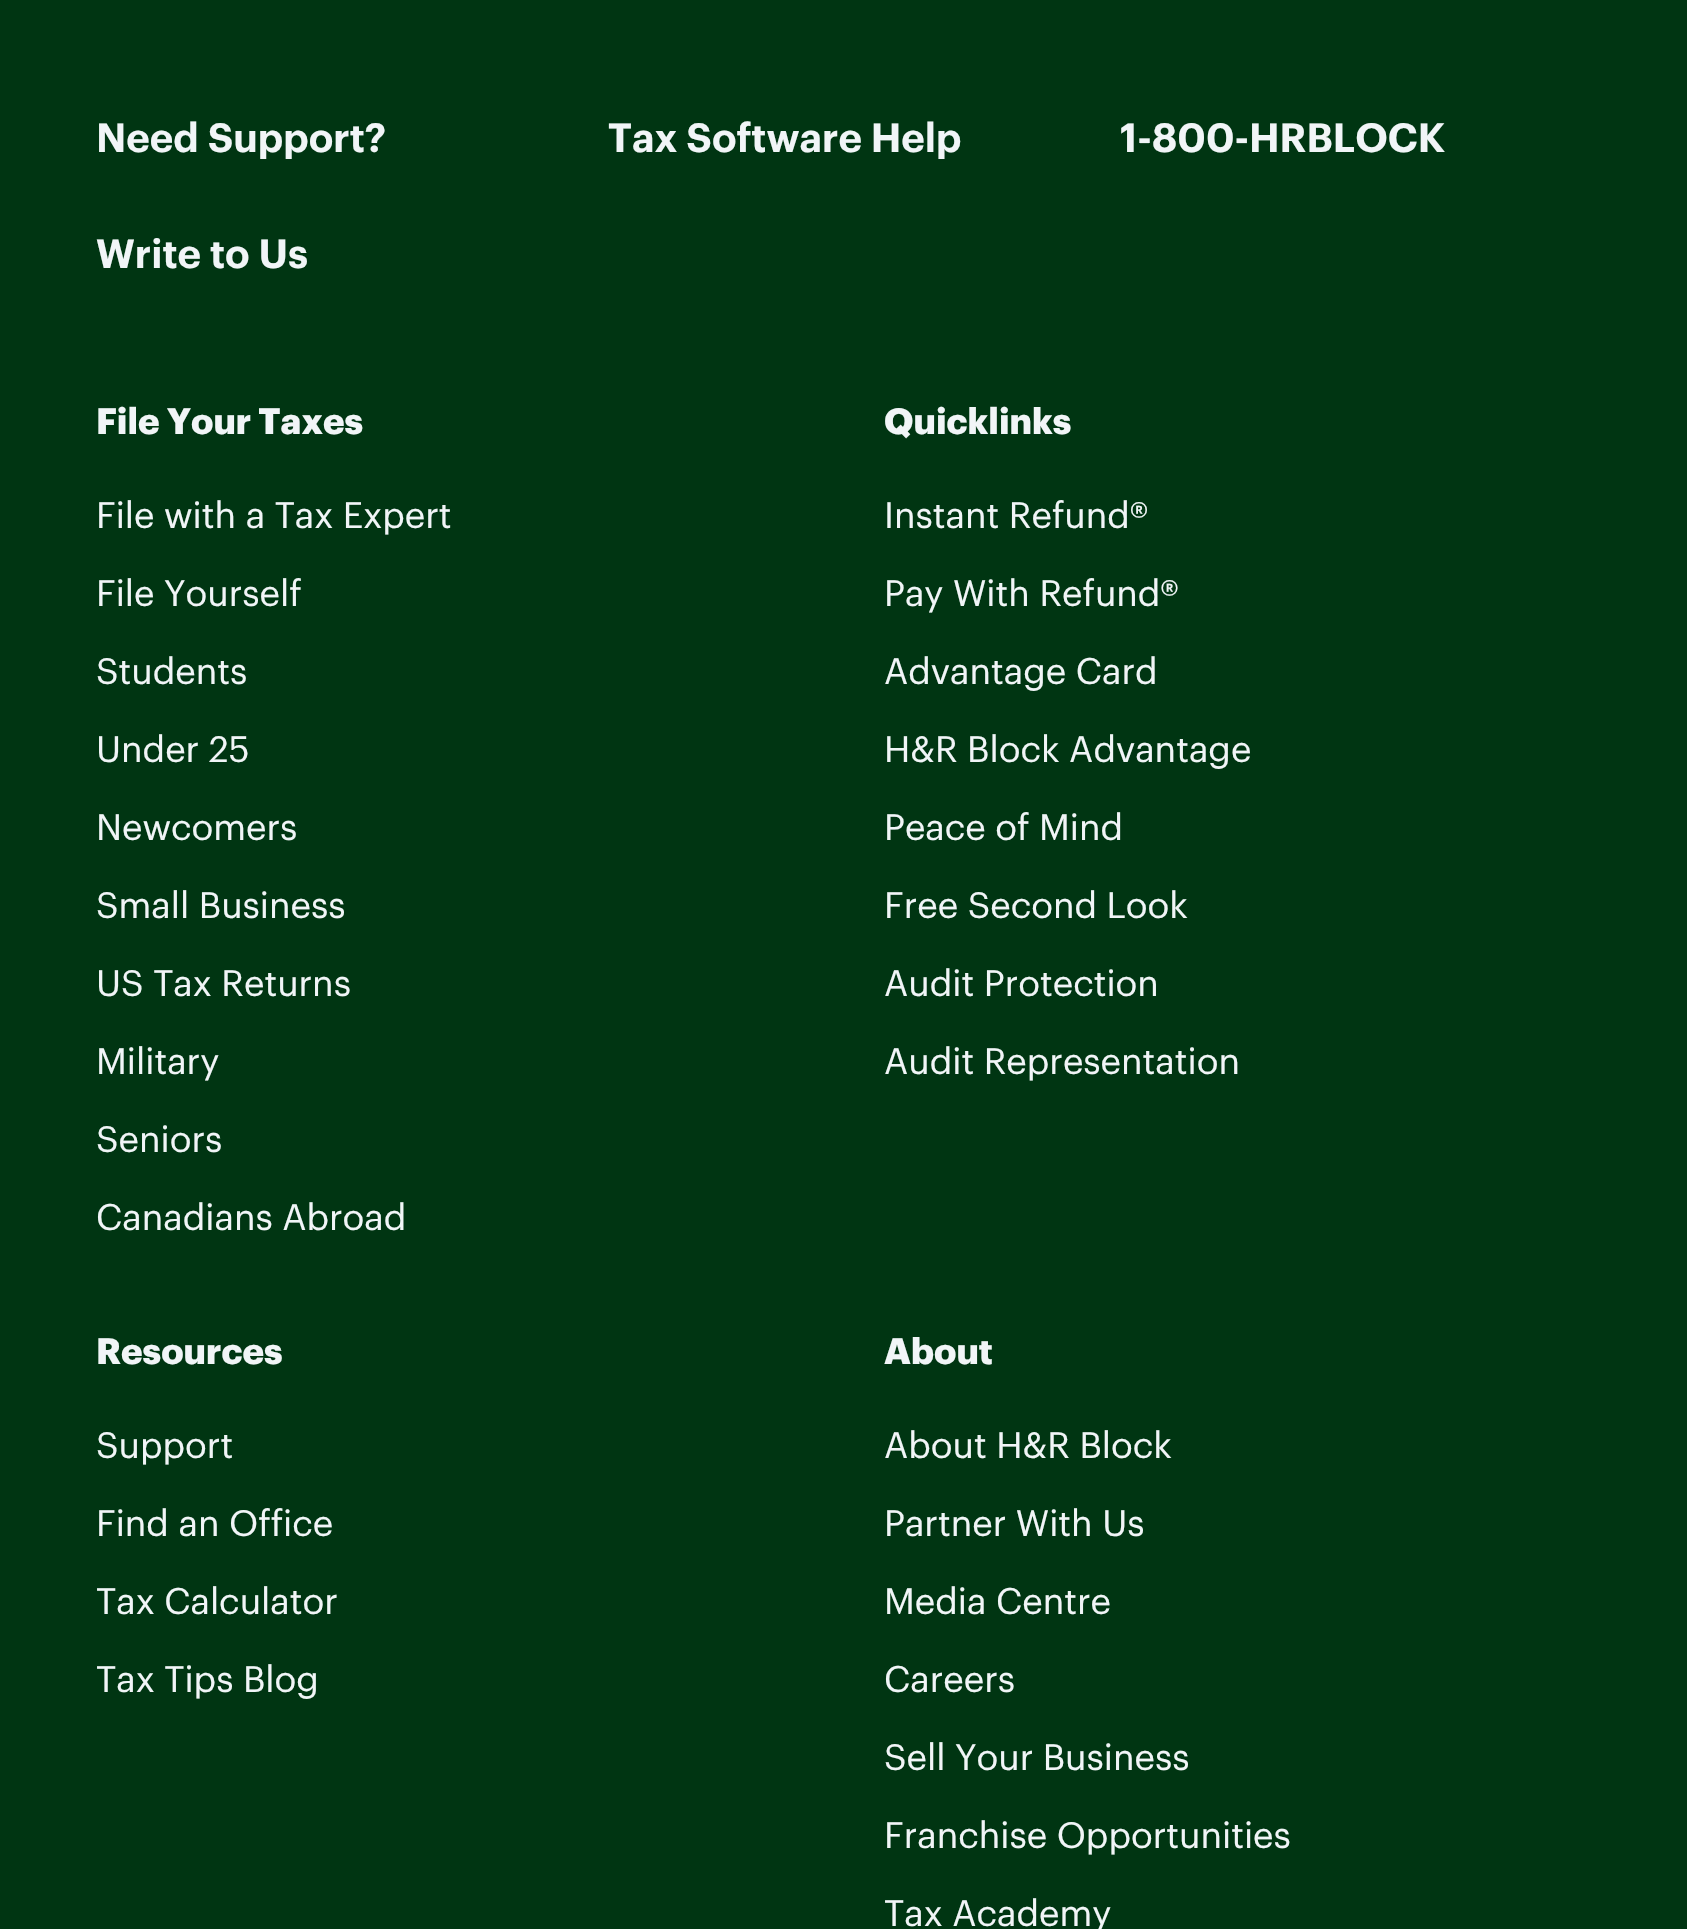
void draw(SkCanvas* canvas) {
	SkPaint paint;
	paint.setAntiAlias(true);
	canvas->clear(0xff003512);
	SkFont f1(fontMgr->matchFamilyStyle("Graphik", SkFontStyle(600, SkFontStyle::kNormal_Width, SkFontStyle::kUpright_Slant)), 40);
	f1.setSubpixel(true);
	paint.setColor(0xfff1f5f7);
	canvas->drawString("Need Support?", 96, 152, f1, paint);
	canvas->drawString("Tax Software Help", 608, 152, f1, paint);
	canvas->drawString("1-800-HRBLOCK", 1120, 152, f1, paint);
	canvas->drawString("Write to Us", 96, 268, f1, paint);
	SkFont f2(fontMgr->matchFamilyStyle("Graphik", SkFontStyle::Bold()), 36);
	f2.setSubpixel(true);
	canvas->drawString("File Your Taxes", 96, 434, f2, paint);
	SkFont f3(fontMgr->matchFamilyStyle("Graphik", SkFontStyle::Normal()), 36);
	f3.setSubpixel(true);
	canvas->drawString("File with a Tax Expert", 96, 528, f3, paint);
	canvas->drawString("File Yourself", 96, 606, f3, paint);
	canvas->drawString("Students", 96, 684, f3, paint);
	canvas->drawString("Under 25", 96, 762, f3, paint);
	canvas->drawString("Newcomers", 96, 840, f3, paint);
	canvas->drawString("Small Business", 96, 918, f3, paint);
	canvas->drawString("US Tax Returns", 96, 996, f3, paint);
	canvas->drawString("Military", 96, 1074, f3, paint);
	canvas->drawString("Seniors", 96, 1152, f3, paint);
	canvas->drawString("Canadians Abroad", 96, 1230, f3, paint);
	canvas->drawString("Quicklinks", 884, 434, f2, paint);
	canvas->drawString("Instant Refund®", 884, 528, f3, paint);
	canvas->drawString("Pay With Refund®", 884, 606, f3, paint);
	canvas->drawString("Advantage Card", 884, 684, f3, paint);
	canvas->drawString("H&R Block Advantage", 884, 762, f3, paint);
	canvas->drawString("Peace of Mind", 884, 840, f3, paint);
	canvas->drawString("Free Second Look", 884, 918, f3, paint);
	canvas->drawString("Audit Protection", 884, 996, f3, paint);
	canvas->drawString("Audit Representation", 884, 1074, f3, paint);
	canvas->drawString("Resources", 96, 1364, f2, paint);
	canvas->drawString("Support", 96, 1458, f3, paint);
	canvas->drawString("Find an Office", 96, 1536, f3, paint);
	canvas->drawString("Tax Calculator", 96, 1614, f3, paint);
	canvas->drawString("Tax Tips Blog", 96, 1692, f3, paint);
	canvas->drawString("About", 884, 1364, f2, paint);
	canvas->drawString("About H&R Block", 884, 1458, f3, paint);
	canvas->drawString("Partner With Us", 884, 1536, f3, paint);
	canvas->drawString("Media Centre", 884, 1614, f3, paint);
	canvas->drawString("Careers", 884, 1692, f3, paint);
	canvas->drawString("Sell Your Business", 884, 1770, f3, paint);
	canvas->drawString("Franchise Opportunities", 884, 1848, f3, paint);
	canvas->drawString("Tax Academy", 884, 1926, f3, paint);
}
